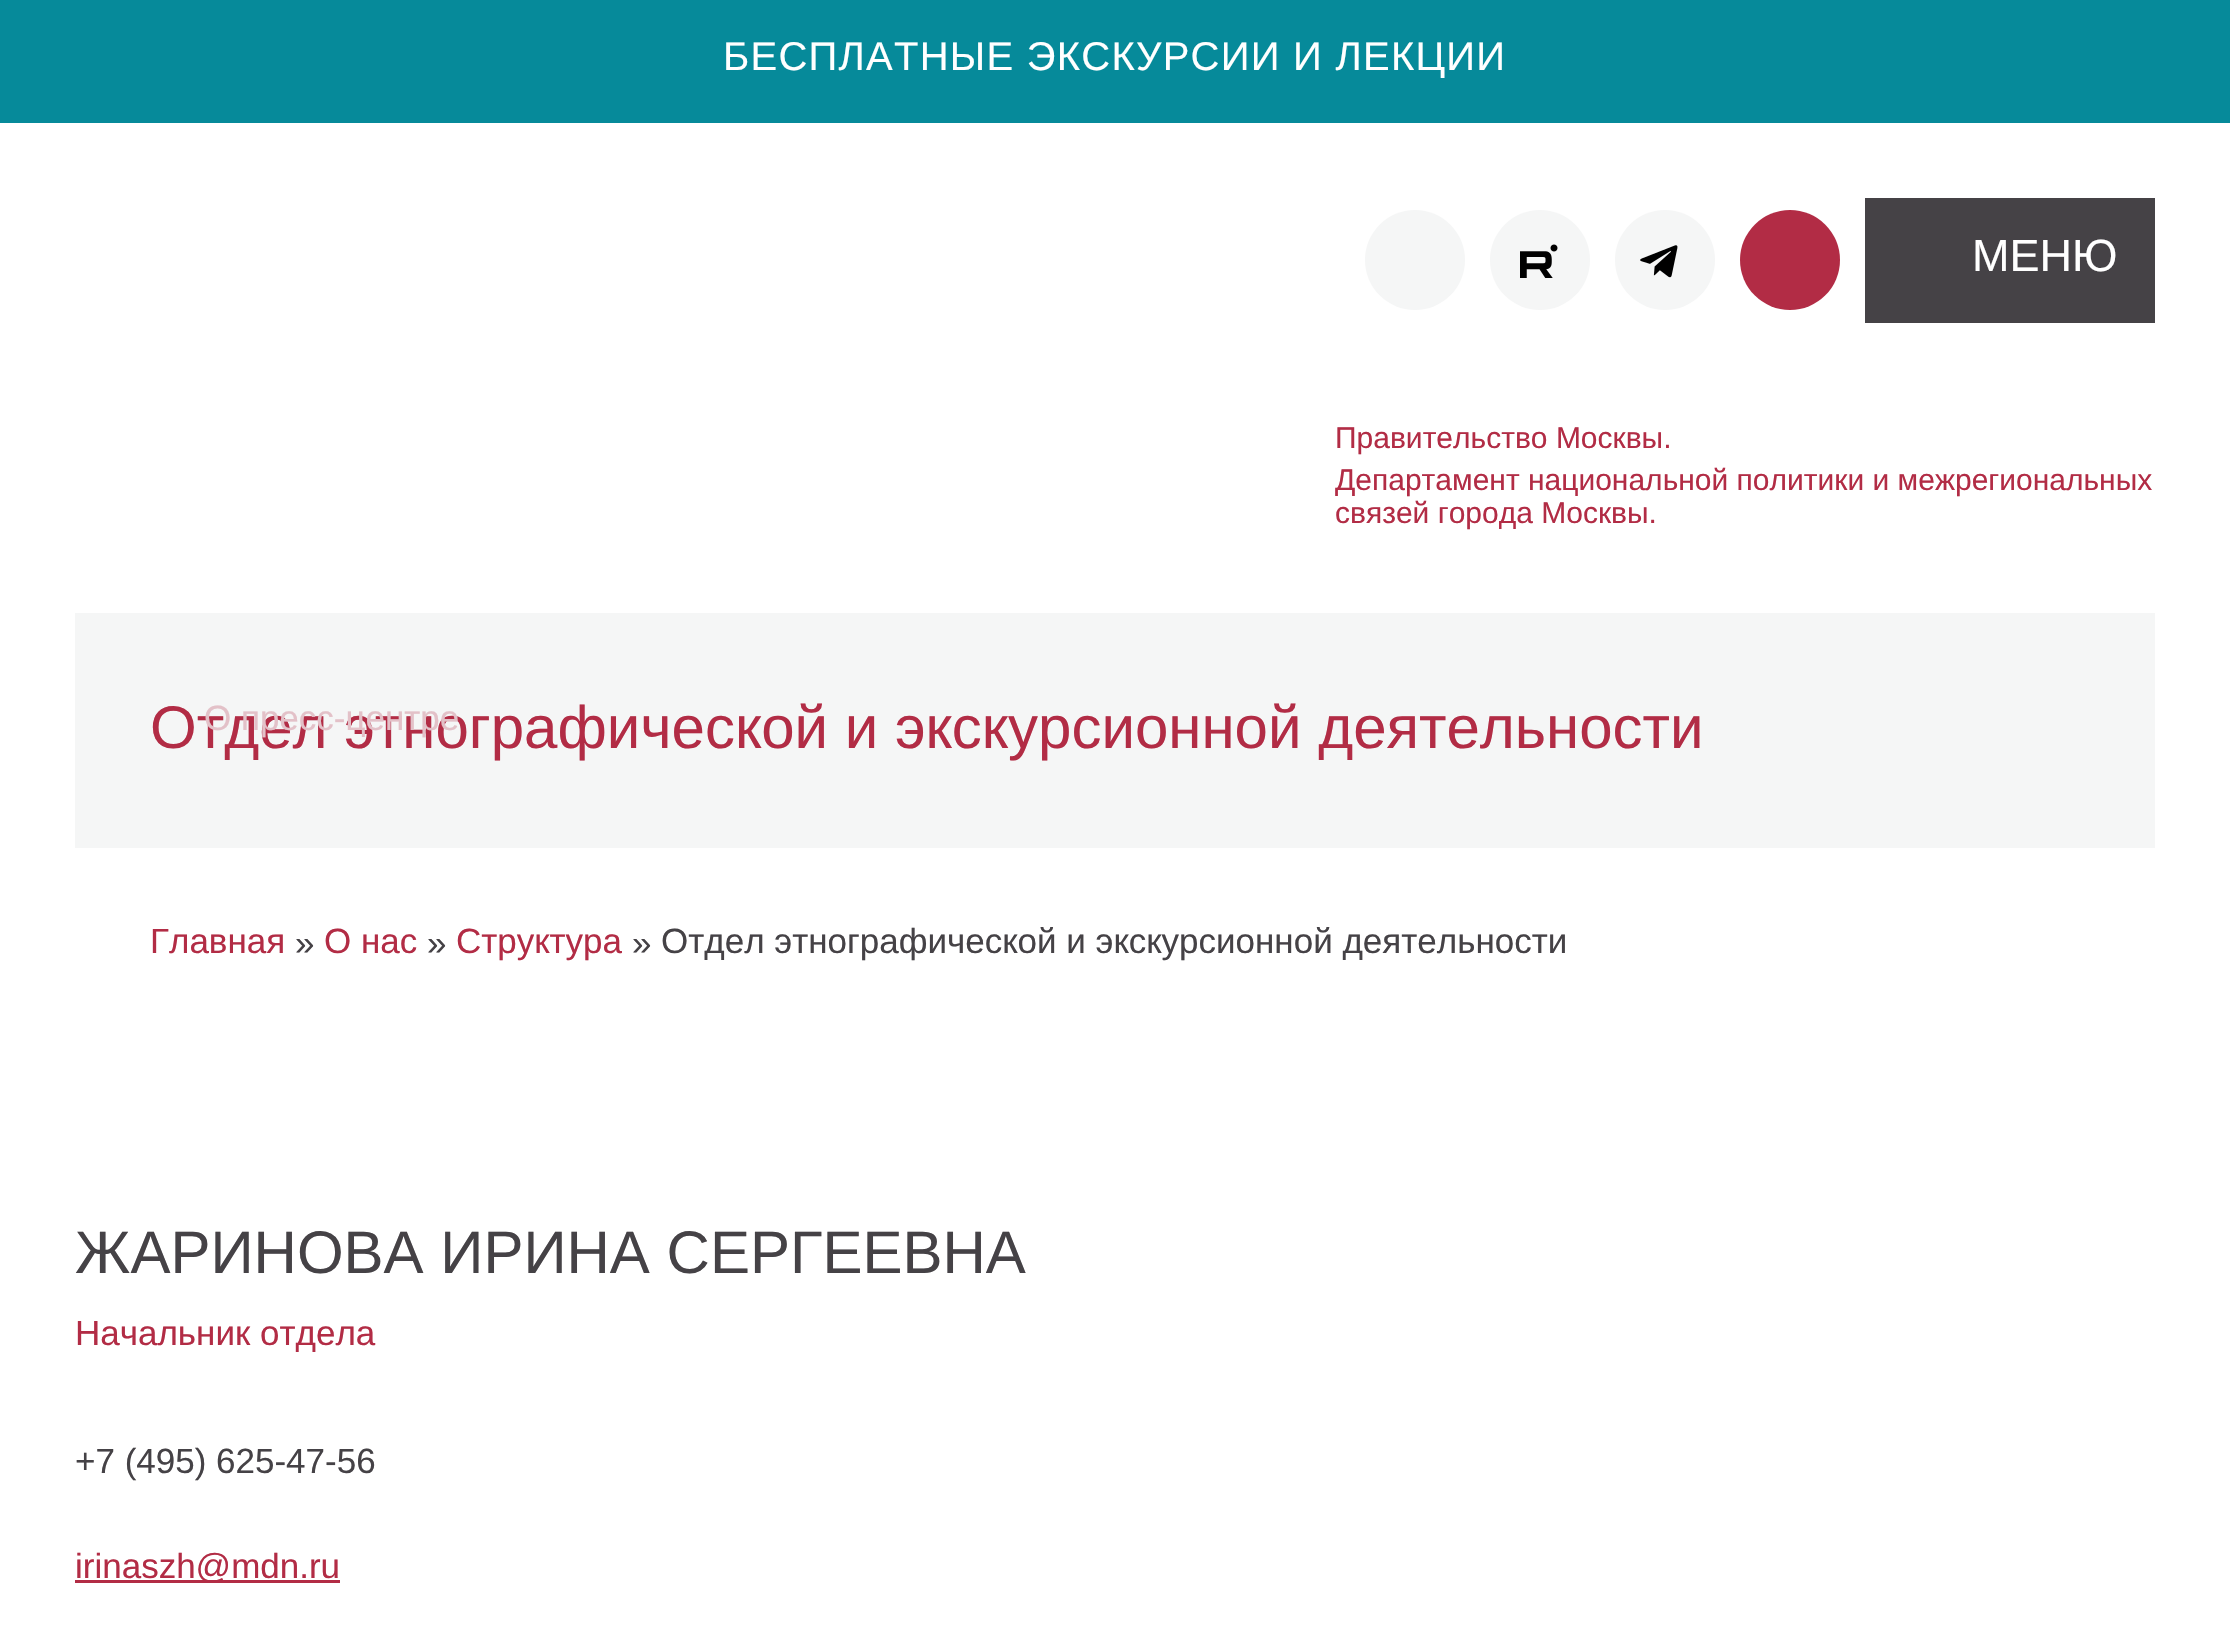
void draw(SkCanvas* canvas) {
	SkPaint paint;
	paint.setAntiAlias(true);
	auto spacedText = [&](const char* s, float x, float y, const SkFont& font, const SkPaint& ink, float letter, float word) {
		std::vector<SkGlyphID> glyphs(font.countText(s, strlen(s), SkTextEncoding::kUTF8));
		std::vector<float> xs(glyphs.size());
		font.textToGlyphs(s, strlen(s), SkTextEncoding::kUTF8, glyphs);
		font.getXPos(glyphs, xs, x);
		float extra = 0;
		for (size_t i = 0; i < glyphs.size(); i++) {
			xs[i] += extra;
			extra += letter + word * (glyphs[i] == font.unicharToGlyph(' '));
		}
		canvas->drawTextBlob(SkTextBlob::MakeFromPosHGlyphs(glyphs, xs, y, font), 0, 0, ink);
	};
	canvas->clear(0xffffffff);
	paint.setColor(0xff068a9a);
	canvas->drawRect(SkRect::MakeXYWH(0, 0, 2230, 123), paint);
	SkFont f1(fontMgr->matchFamilyStyle("Liberation Sans", SkFontStyle::Normal()), 40);
	f1.setSubpixel(true);
	paint.setColor(0xffffffff);
	spacedText("БЕСПЛАТНЫЕ ЭКСКУРСИИ И ЛЕКЦИИ", 723, 70, f1, paint, 1.25, 0);
	paint.setColor(0xfff5f6f6);
	canvas->drawCircle(1415, 260, 50, paint);
	canvas->drawCircle(1540, 260, 50, paint);
	canvas->drawImageRect(SkImages::DeferredFromEncodedData(SkData::MakeFromFileName("img1.png")), SkRect::MakeXYWH(1520, 244, 38, 34), SkSamplingOptions());
	canvas->drawCircle(1665, 260, 50, paint);
	canvas->drawImageRect(SkImages::DeferredFromEncodedData(SkData::MakeFromFileName("img2.png")), SkRect::MakeXYWH(1640, 245, 38, 33), SkSamplingOptions());
	paint.setColor(0xffb22c45);
	canvas->drawCircle(1790, 260, 50, paint);
	paint.setColor(0xff454246);
	canvas->drawRect(SkRect::MakeXYWH(1865, 198, 290, 125), paint);
	SkFont f2(fontMgr->matchFamilyStyle("Liberation Sans", SkFontStyle::Normal()), 45);
	f2.setSubpixel(true);
	paint.setColor(0xffffffff);
	canvas->drawString("МЕНЮ", 1972, 271, f2, paint);
	SkFont f3(fontMgr->matchFamilyStyle("Liberation Sans", SkFontStyle::Normal()), 30);
	f3.setSubpixel(true);
	paint.setColor(0xffb22c45);
	canvas->drawString("Правительство Москвы.", 1335, 448, f3, paint);
	canvas->drawString("Департамент национальной политики и межрегиональных", 1335, 490, f3, paint);
	canvas->drawString("связей города Москвы.", 1335, 523, f3, paint);
	paint.setColor(0xfff5f6f6);
	canvas->drawRect(SkRect::MakeXYWH(75, 613, 2080, 235), paint);
	SkFont f4(fontMgr->matchFamilyStyle("Liberation Sans", SkFontStyle::Normal()), 60);
	f4.setSubpixel(true);
	paint.setColor(0xffb22c45);
	canvas->drawString("Отдел этнографической и экскурсионной деятельности", 150, 748, f4, paint);
	SkFont f5(fontMgr->matchFamilyStyle("Liberation Sans", SkFontStyle::Normal()), 35);
	f5.setSubpixel(true);
	paint.setColor(0xffe3c1c8);
	canvas->drawString("О пресс-центре", 204, 730, f5, paint);
	paint.setColor(0xffb22c45);
	canvas->drawString("Главная", 150, 953, f5, paint);
	paint.setColor(0xff454246);
	canvas->drawString("»", 295, 955, f5, paint);
	paint.setColor(0xffb22c45);
	canvas->drawString("О нас", 324, 953, f5, paint);
	paint.setColor(0xff454246);
	canvas->drawString("»", 427, 955, f5, paint);
	paint.setColor(0xffb22c45);
	canvas->drawString("Структура", 456, 953, f5, paint);
	paint.setColor(0xff454246);
	canvas->drawString("»", 632, 955, f5, paint);
	canvas->drawString("Отдел этнографической и экскурсионной деятельности", 661, 953, f5, paint);
	canvas->drawString("ЖАРИНОВА ИРИНА СЕРГЕЕВНА", 75, 1273, f4, paint);
	paint.setColor(0xffb22c45);
	canvas->drawString("Начальник отдела", 75, 1345, f5, paint);
	paint.setColor(0xff454246);
	canvas->drawString("+7 (495) 625-47-56", 75, 1473, f5, paint);
	paint.setColor(0xffb22c45);
	canvas->drawRect(SkRect::MakeXYWH(75, 1580, 265, 3), paint);
	canvas->drawString("irinaszh@mdn.ru", 75, 1578, f5, paint);
}
